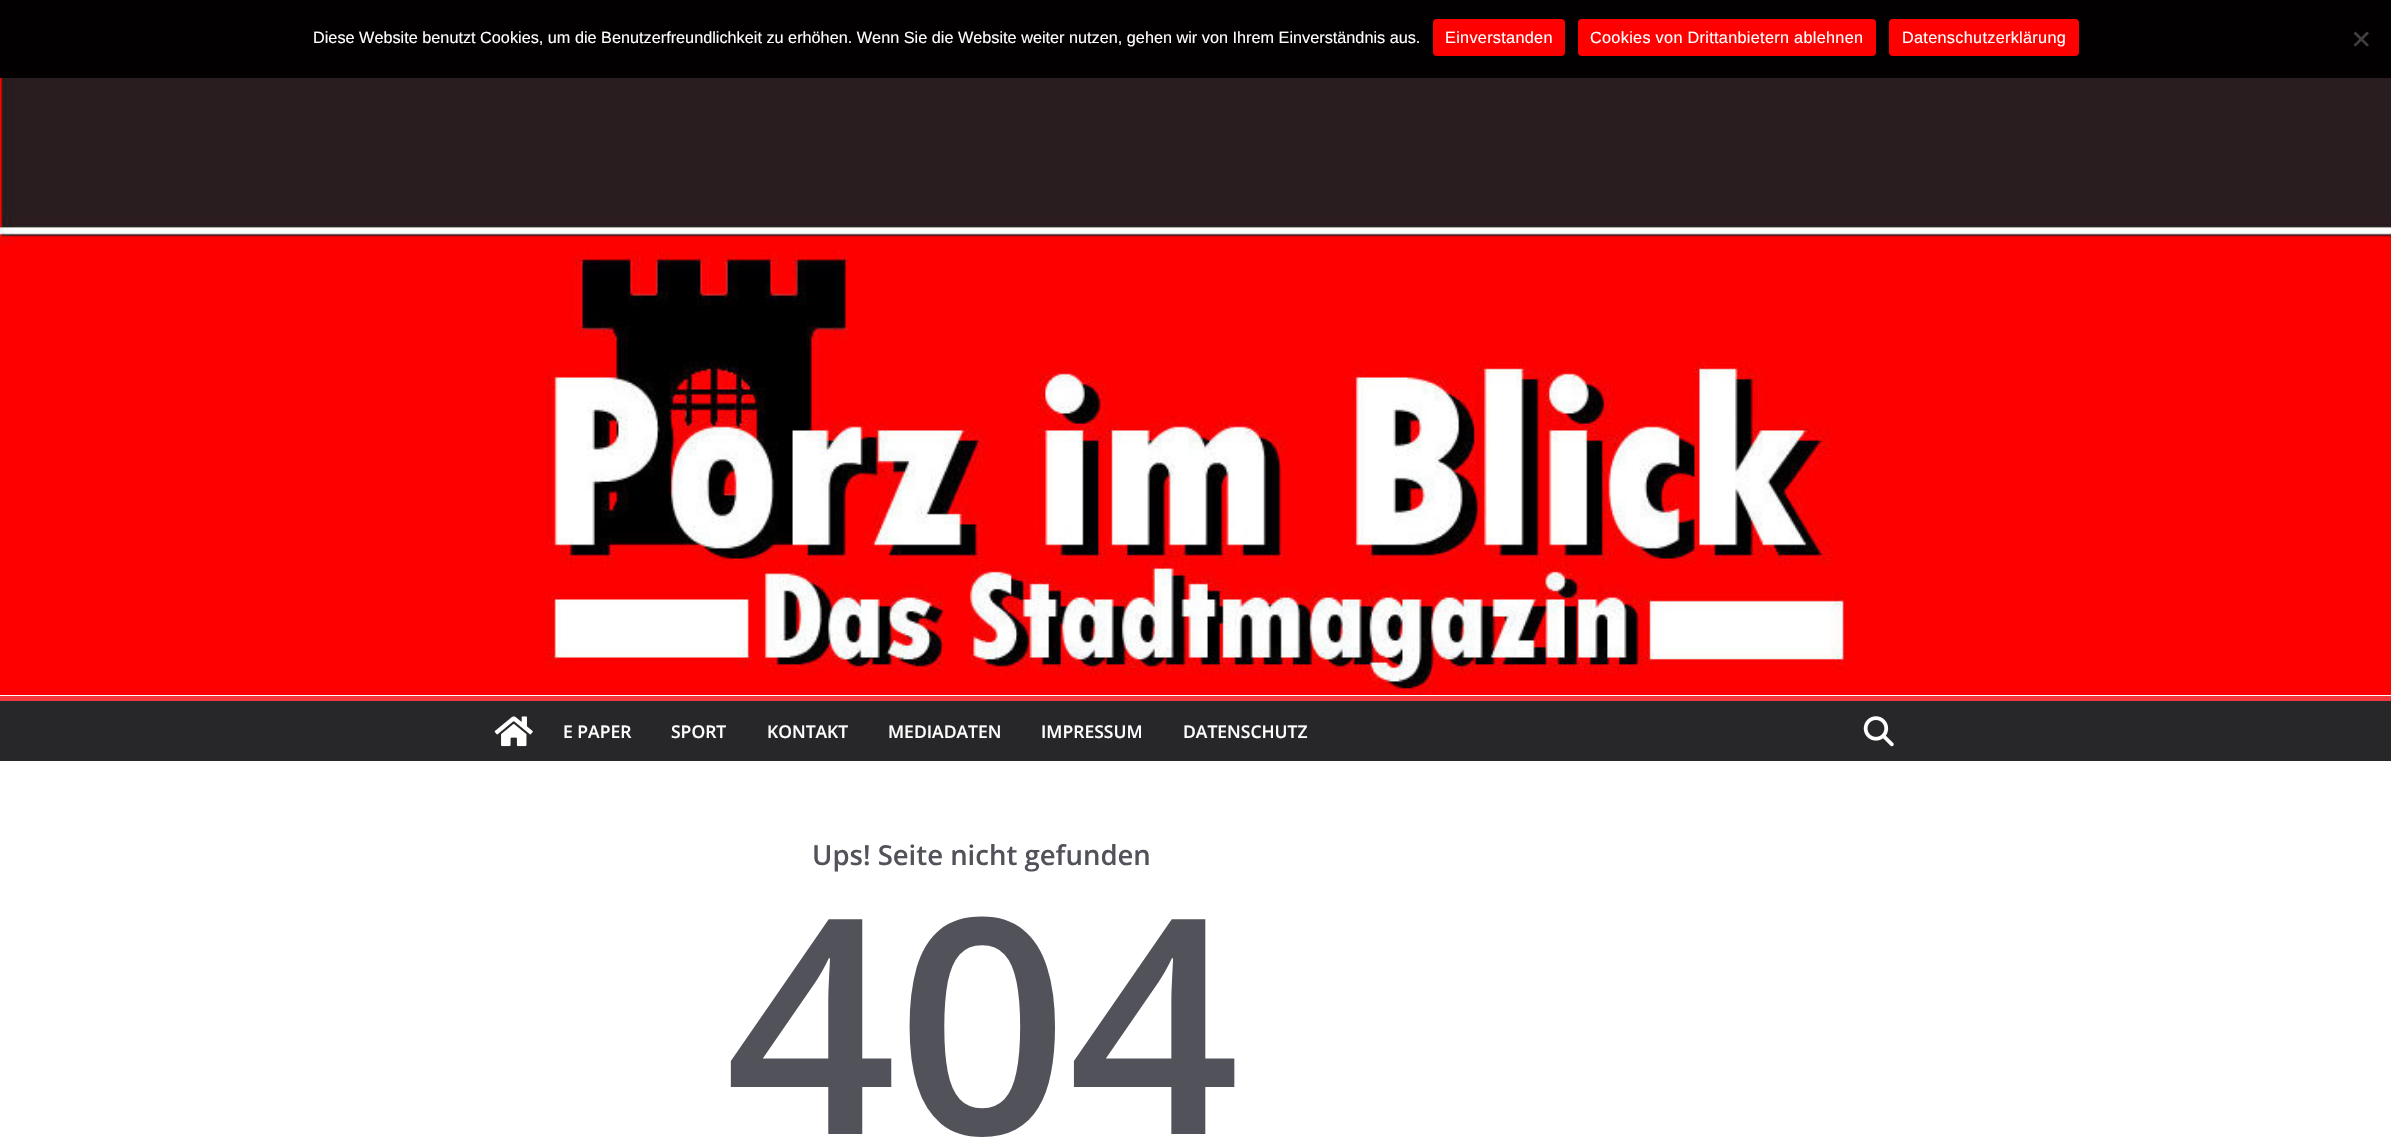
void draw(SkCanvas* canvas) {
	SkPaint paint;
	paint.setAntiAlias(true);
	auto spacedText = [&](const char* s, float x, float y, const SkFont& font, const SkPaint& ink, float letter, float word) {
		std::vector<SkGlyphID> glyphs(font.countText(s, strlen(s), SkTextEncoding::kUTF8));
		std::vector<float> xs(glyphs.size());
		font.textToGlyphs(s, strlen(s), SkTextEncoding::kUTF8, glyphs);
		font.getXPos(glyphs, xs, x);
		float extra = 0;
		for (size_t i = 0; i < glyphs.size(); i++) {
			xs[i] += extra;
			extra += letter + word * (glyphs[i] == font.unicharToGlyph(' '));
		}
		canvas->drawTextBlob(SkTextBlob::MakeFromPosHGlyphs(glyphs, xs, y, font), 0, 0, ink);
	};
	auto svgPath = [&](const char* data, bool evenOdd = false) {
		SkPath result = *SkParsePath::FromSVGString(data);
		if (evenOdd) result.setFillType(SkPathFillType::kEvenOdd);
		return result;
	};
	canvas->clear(0xffffffff);
	paint.setColor(0xff020000);
	canvas->drawRect(SkRect::MakeXYWH(0, 0, 2391, 78), paint);
	SkFont f1(fontMgr->matchFamilyStyle("Liberation Sans", SkFontStyle::Normal()), 16.25);
	f1.setSubpixel(true);
	paint.setColor(0xffffffff);
	canvas->drawString("Diese Website benutzt Cookies, um die Benutzerfreundlichkeit zu erhöhen. Wenn Sie die Website weiter nutzen, gehen wir von Ihrem Einverständnis aus.", 313, 43, f1, paint);
	paint.setColor(0xffff0000);
	canvas->drawRoundRect(SkRect::MakeXYWH(1433, 19, 132, 37), 4, 4, paint);
	paint.setColor(0xffffffff);
	spacedText("Einverstanden", 1445, 43, f1, paint, 0.3, 0);
	paint.setColor(0xffff0000);
	canvas->drawRoundRect(SkRect::MakeXYWH(1578, 19, 298, 37), 4, 4, paint);
	paint.setColor(0xffffffff);
	spacedText("Cookies von Drittanbietern ablehnen", 1590, 43, f1, paint, 0.3, 0);
	paint.setColor(0xffff0000);
	canvas->drawRoundRect(SkRect::MakeXYWH(1889, 19, 190, 37), 4, 4, paint);
	paint.setColor(0xffffffff);
	spacedText("Datenschutzerklärung", 1902, 43, f1, paint, 0.3, 0);
	paint.setColor(0xff414040);
	canvas->drawPath(svgPath("M2367 31.5L2369 33.5L2355.5 46.5L2353.5 45Z"), paint);
	canvas->drawPath(svgPath("M2353.5 33.5L2355.5 31.5L2369 45L2367 46.5Z"), paint);
	canvas->drawImageRect(SkImages::DeferredFromEncodedData(SkData::MakeFromFileName("img1.png")), SkRect::MakeXYWH(0, 78, 2391, 617), SkSamplingOptions());
	paint.setColor(0xff27272a);
	canvas->drawRect(SkRect::MakeXYWH(0, 701, 2391, 60), paint);
	paint.setColor(0xfff2373d);
	canvas->drawRect(SkRect::MakeXYWH(0, 696, 2391, 5), paint);
	canvas->drawImageRect(SkImages::DeferredFromEncodedData(SkData::MakeFromFileName("img2.png")), SkRect::MakeXYWH(494, 716, 39, 31), SkSamplingOptions());
	SkFont f2(fontMgr->matchFamilyStyle("Open Sans", SkFontStyle(600, SkFontStyle::kNormal_Width, SkFontStyle::kUpright_Slant)), 17.5);
	f2.setSubpixel(true);
	paint.setColor(0xffffffff);
	canvas->drawString("E PAPER", 563, 738, f2, paint);
	canvas->drawString("SPORT", 671, 738, f2, paint);
	canvas->drawString("KONTAKT", 767, 738, f2, paint);
	canvas->drawString("MEDIADATEN", 888, 738, f2, paint);
	canvas->drawString("IMPRESSUM", 1041, 738, f2, paint);
	canvas->drawString("DATENSCHUTZ", 1183, 738, f2, paint);
	canvas->drawImageRect(SkImages::DeferredFromEncodedData(SkData::MakeFromFileName("img3.png")), SkRect::MakeXYWH(1863, 716, 31, 31), SkSamplingOptions());
	SkFont f3(fontMgr->matchFamilyStyle("Open Sans", SkFontStyle(600, SkFontStyle::kNormal_Width, SkFontStyle::kUpright_Slant)), 27.5);
	f3.setSubpixel(true);
	paint.setColor(0xff52525b);
	canvas->drawString("Ups! Seite nicht gefunden", 812, 865, f3, paint);
	SkFont f4(fontMgr->matchFamilyStyle("Open Sans", SkFontStyle(600, SkFontStyle::kNormal_Width, SkFontStyle::kUpright_Slant)), 300);
	f4.setSubpixel(true);
	canvas->drawString("404", 725, 1134, f4, paint);
}
